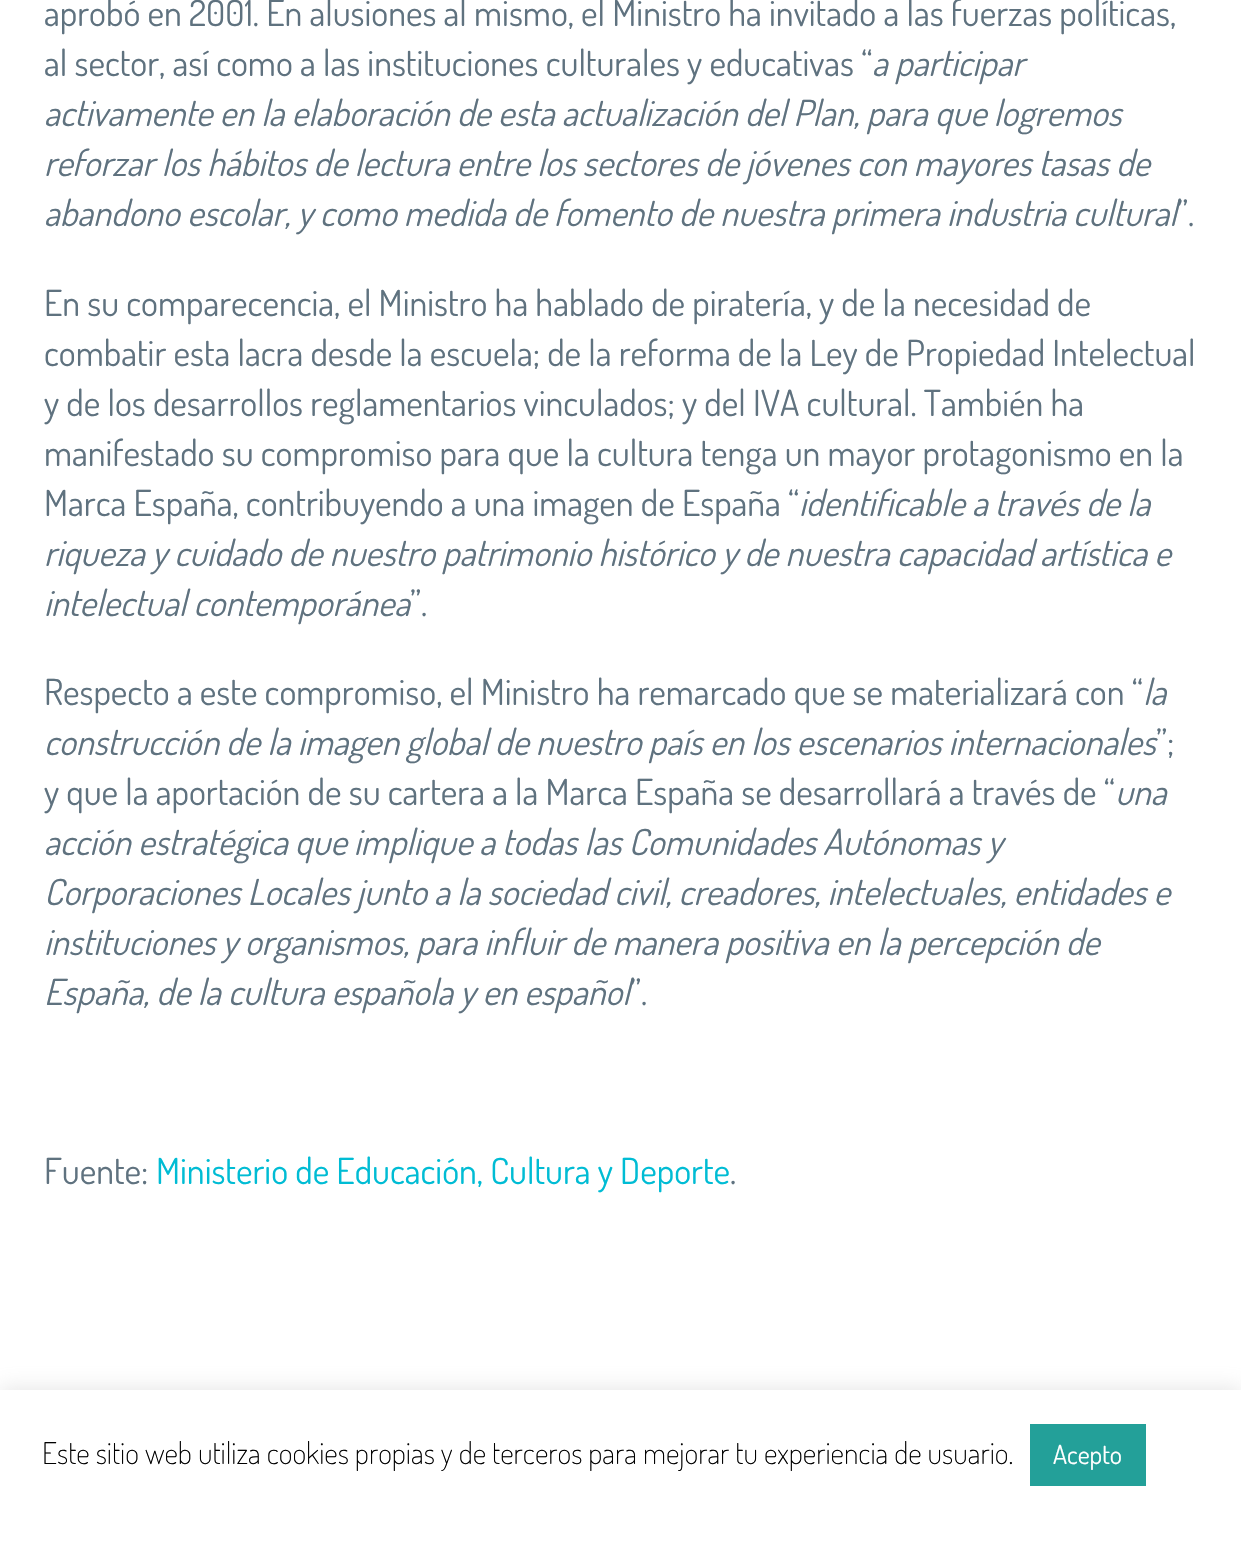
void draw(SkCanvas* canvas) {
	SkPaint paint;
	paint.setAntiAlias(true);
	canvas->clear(0xffffffff);
	SkFont f1(fontMgr->matchFamilyStyle("Dosis", SkFontStyle::Normal()), 36);
	f1.setSubpixel(true);
	paint.setColor(0xff5f727f);
	canvas->drawString("aprobó en 2001. En alusiones al mismo, el Ministro ha invitado a las fuerzas políticas,", 44, 26, f1, paint);
	canvas->drawString("al sector, así como a las instituciones culturales y educativas “", 44, 76, f1, paint);
	SkFont f2(fontMgr->matchFamilyStyle("Dosis", SkFontStyle::Italic()), 36);
	f2.setSubpixel(true);
	canvas->drawString("a participar", 872, 76, f2, paint);
	canvas->drawString("activamente en la elaboración de esta actualización del Plan, para que logremos", 44, 126, f2, paint);
	canvas->drawString("reforzar los hábitos de lectura entre los sectores de jóvenes con mayores tasas de", 44, 176, f2, paint);
	canvas->drawString("abandono escolar, y como medida de fomento de nuestra primera industria cultural", 44, 226, f2, paint);
	canvas->drawString("”.", 1177, 226, f1, paint);
	canvas->drawString("En su comparecencia, el Ministro ha hablado de piratería, y de la necesidad de", 44, 316, f1, paint);
	canvas->drawString("combatir esta lacra desde la escuela; de la reforma de la Ley de Propiedad Intelectual", 44, 366, f1, paint);
	canvas->drawString("y de los desarrollos reglamentarios vinculados; y del IVA cultural. También ha", 44, 416, f1, paint);
	canvas->drawString("manifestado su compromiso para que la cultura tenga un mayor protagonismo en la", 44, 466, f1, paint);
	canvas->drawString("Marca España, contribuyendo a una imagen de España “", 44, 516, f1, paint);
	canvas->drawString("identificable a través de la", 799, 516, f2, paint);
	canvas->drawString("riqueza y cuidado de nuestro patrimonio histórico y de nuestra capacidad artística e", 44, 566, f2, paint);
	canvas->drawString("intelectual contemporánea", 44, 616, f2, paint);
	canvas->drawString("”.", 410, 616, f1, paint);
	canvas->drawString("Respecto a este compromiso, el Ministro ha remarcado que se materializará con “", 44, 705, f1, paint);
	canvas->drawString("la", 1143, 705, f2, paint);
	canvas->drawString("construcción de la imagen global de nuestro país en los escenarios internacionales", 44, 755, f2, paint);
	canvas->drawString("”;", 1156, 755, f1, paint);
	canvas->drawString("y que la aportación de su cartera a la Marca España se desarrollará a través de “", 44, 805, f1, paint);
	canvas->drawString("una", 1115, 805, f2, paint);
	canvas->drawString("acción estratégica que implique a todas las Comunidades Autónomas y", 44, 855, f2, paint);
	canvas->drawString("Corporaciones Locales junto a la sociedad civil, creadores, intelectuales, entidades e", 44, 905, f2, paint);
	canvas->drawString("instituciones y organismos, para influir de manera positiva en la percepción de", 44, 955, f2, paint);
	canvas->drawString("España, de la cultura española y en español", 44, 1005, f2, paint);
	canvas->drawString("”.", 630, 1005, f1, paint);
	canvas->drawString("Fuente:", 44, 1184, f1, paint);
	paint.setColor(0xff00bcd4);
	canvas->drawString("Ministerio de Educación, Cultura y Deporte", 156, 1184, f1, paint);
	paint.setColor(0xff5f727f);
	canvas->drawString(".", 730, 1184, f1, paint);
	paint.setColor(0x4dacabab);
	paint.setMaskFilter(SkMaskFilter::MakeBlur(kNormal_SkBlurStyle, 10));
	canvas->drawRect(SkRect::MakeXYWH(0, 1388, 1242, 174), paint);
	paint.setMaskFilter(nullptr);
	paint.setColor(0xffffffff);
	canvas->drawRect(SkRect::MakeXYWH(0, 1390, 1241, 173), paint);
	SkFont f3(fontMgr->matchFamilyStyle("Dosis", SkFontStyle(200, SkFontStyle::kNormal_Width, SkFontStyle::kUpright_Slant)), 30);
	f3.setSubpixel(true);
	paint.setColor(0xff000000);
	canvas->drawString("Este sitio web utiliza cookies propias y de terceros para mejorar tu experiencia de usuario.", 42, 1464, f3, paint);
	paint.setColor(0xff23a099);
	canvas->drawRect(SkRect::MakeXYWH(1030, 1424, 116, 62), paint);
	SkFont f4(fontMgr->matchFamilyStyle("Dosis", SkFontStyle::Normal()), 26);
	f4.setSubpixel(true);
	paint.setColor(0xffffffff);
	canvas->drawString("Acepto", 1053, 1464, f4, paint);
}
